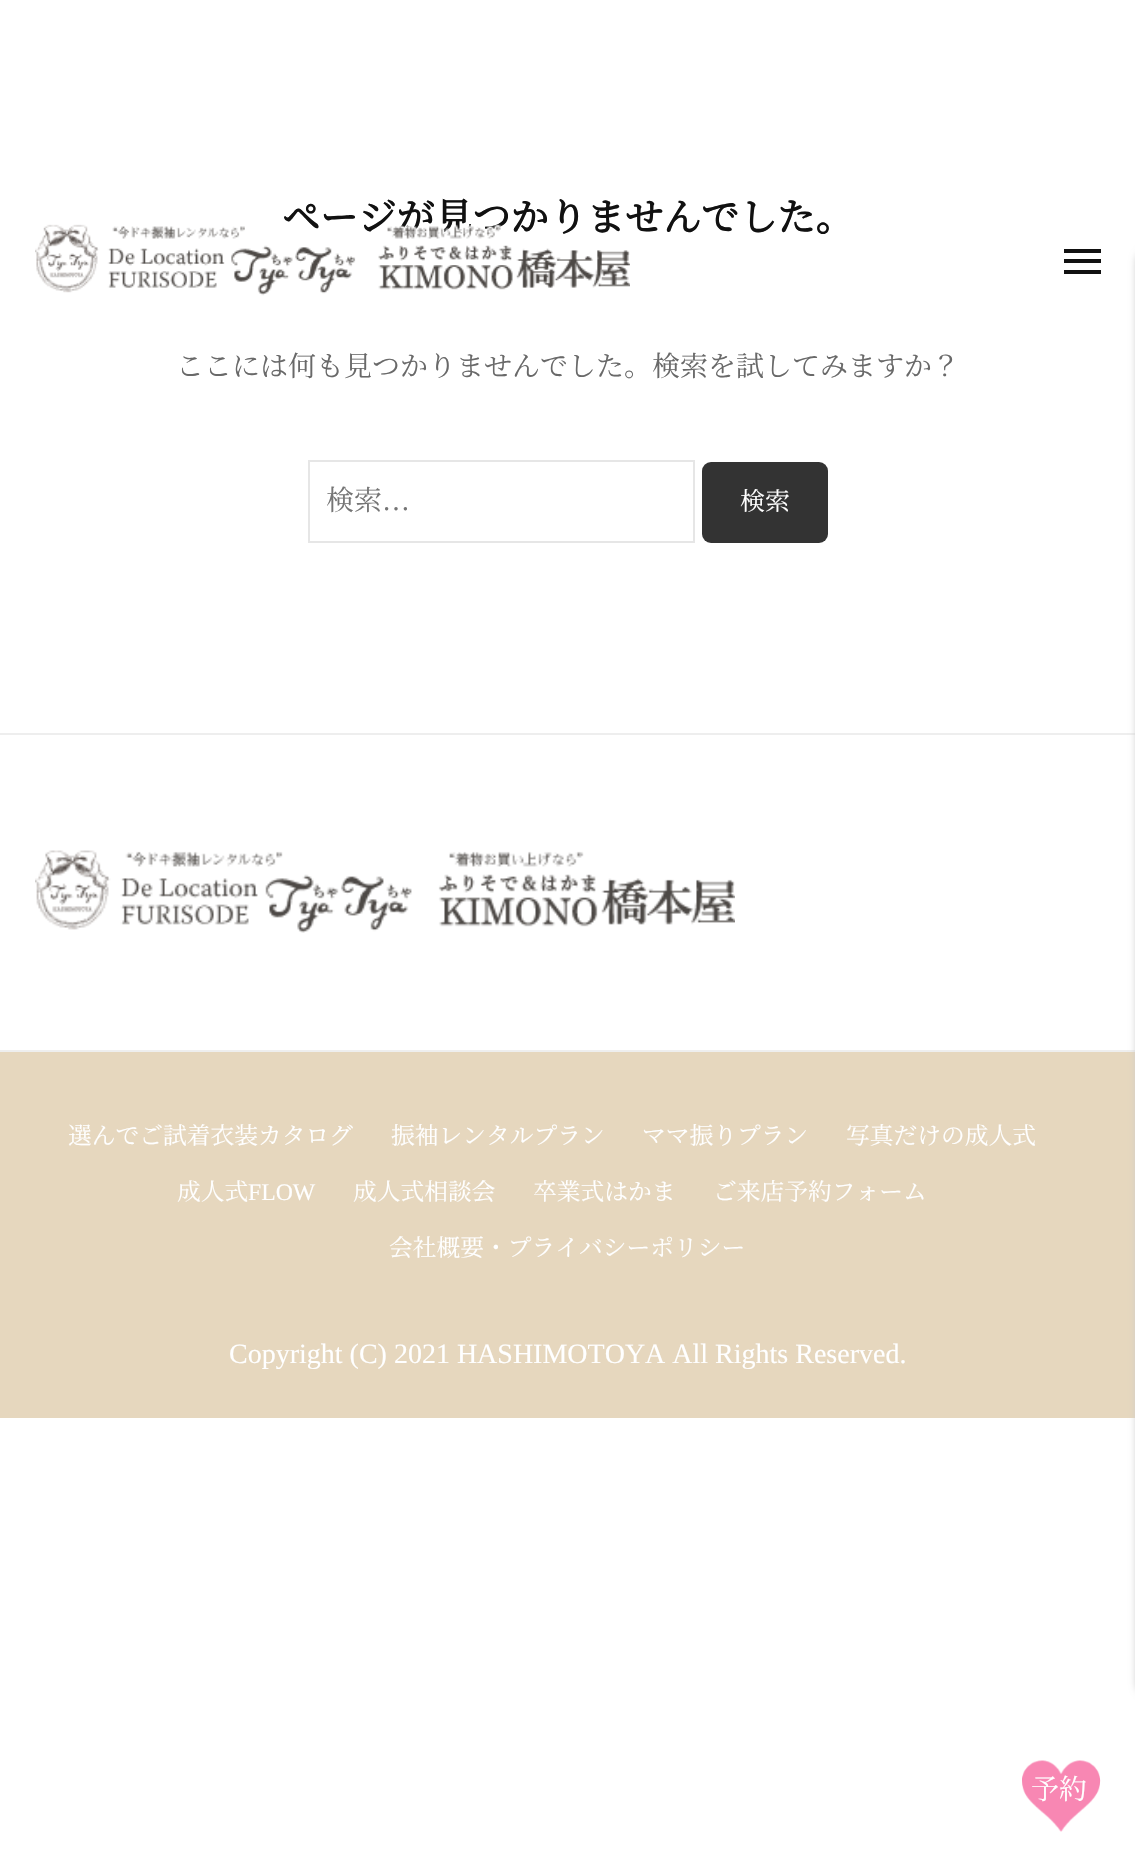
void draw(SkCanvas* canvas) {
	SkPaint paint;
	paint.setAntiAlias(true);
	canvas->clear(0xffffffff);
	SkFont f1(fontMgr->matchFamilyStyle("Noto Serif JP", SkFontStyle::Bold()), 38.1);
	f1.setSubpixel(true);
	paint.setColor(0xff111111);
	canvas->drawString("ページが見つかりませんでした。", 282, 231, f1, paint);
	SkFont f2(fontMgr->matchFamilyStyle("Noto Serif JP", SkFontStyle(200, SkFontStyle::kNormal_Width, SkFontStyle::kUpright_Slant)), 28);
	f2.setSubpixel(true);
	paint.setColor(0xff696969);
	canvas->drawString("ここには何も見つかりませんでした。検索を試してみますか？", 176, 376, f2, paint);
	paint.setStroke(true);
	paint.setStrokeWidth(2);
	paint.setColor(0xffe6e6e6);
	canvas->drawRect(SkRect::MakeXYWH(309, 461, 385, 81), paint);
	paint.setStroke(false);
	paint.setColor(0xff757575);
	canvas->drawString("検索", 326, 510, f2, paint);
	SkFont f3(fontMgr->matchFamilyStyle("Liberation Serif", SkFontStyle::Normal()), 28);
	f3.setSubpixel(true);
	canvas->drawString("…", 382, 510, f3, paint);
	paint.setColor(0xff333333);
	canvas->drawRoundRect(SkRect::MakeXYWH(702, 462, 126, 81), 9, 9, paint);
	SkFont f4(fontMgr->matchFamilyStyle("Noto Serif JP", SkFontStyle(200, SkFontStyle::kNormal_Width, SkFontStyle::kUpright_Slant)), 25);
	f4.setSubpixel(true);
	paint.setColor(0xffffffff);
	canvas->drawString("検索", 740, 510, f4, paint);
	canvas->drawImageRect(SkImages::DeferredFromEncodedData(SkData::MakeFromFileName("img1.png")), SkRect::MakeXYWH(35, 224, 595, 72), SkSamplingOptions());
	paint.setColor(0xff111111);
	canvas->drawRect(SkRect::MakeXYWH(1064, 259, 37, 4), paint);
	canvas->drawRect(SkRect::MakeXYWH(1064, 249, 37, 4), paint);
	canvas->drawRect(SkRect::MakeXYWH(1064, 270, 37, 4), paint);
	paint.setColor(0xffeeeeee);
	canvas->drawRect(SkRect::MakeXYWH(0, 733, 1135, 2), paint);
	canvas->drawImageRect(SkImages::DeferredFromEncodedData(SkData::MakeFromFileName("img2.png")), SkRect::MakeXYWH(35, 850, 700, 83), SkSamplingOptions());
	paint.setColor(0xffe6d7be);
	canvas->drawRect(SkRect::MakeXYWH(0, 1052, 1135, 366), paint);
	paint.setColor(0xffeeeeee);
	canvas->drawRect(SkRect::MakeXYWH(0, 1050, 1135, 2), paint);
	SkFont f5(fontMgr->matchFamilyStyle("Noto Serif JP", SkFontStyle(200, SkFontStyle::kNormal_Width, SkFontStyle::kUpright_Slant)), 23.75);
	f5.setSubpixel(true);
	paint.setColor(0xffffffff);
	canvas->drawString("選んでご試着衣装カタログ", 68, 1144, f5, paint);
	canvas->drawString("振袖レンタルプラン", 391, 1144, f5, paint);
	canvas->drawString("ママ振りプラン", 642, 1144, f5, paint);
	canvas->drawString("写真だけの成人式", 846, 1144, f5, paint);
	canvas->drawString("成人式", 177, 1200, f5, paint);
	SkFont f6(fontMgr->matchFamilyStyle("Liberation Serif", SkFontStyle::Normal()), 23.75);
	f6.setSubpixel(true);
	canvas->drawString("FLOW", 248, 1200, f6, paint);
	canvas->drawString("成人式相談会", 353, 1200, f5, paint);
	canvas->drawString("卒業式はかま", 533, 1200, f5, paint);
	canvas->drawString("ご来店予約フォーム", 713, 1200, f5, paint);
	canvas->drawString("会社概要・プライバシーポリシー", 389, 1256, f5, paint);
	canvas->drawString("Copyright (C) 2021 HASHIMOTOYA All Rights Reserved.", 229, 1363, f3, paint);
	paint.setColor(0xffcccccc);
	paint.setMaskFilter(SkMaskFilter::MakeBlur(kNormal_SkBlurStyle, 3.5));
	canvas->drawRoundRect(SkRect::MakeXYWH(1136, 249, 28, 1447), 18, 18, paint);
	paint.setMaskFilter(nullptr);
	canvas->drawImageRect(SkImages::DeferredFromEncodedData(SkData::MakeFromFileName("img3.png")), SkRect::MakeXYWH(1022, 1760, 79, 72), SkSamplingOptions());
	paint.setColor(0xffffffff);
	canvas->drawString("予約", 1031, 1799, f2, paint);
}
